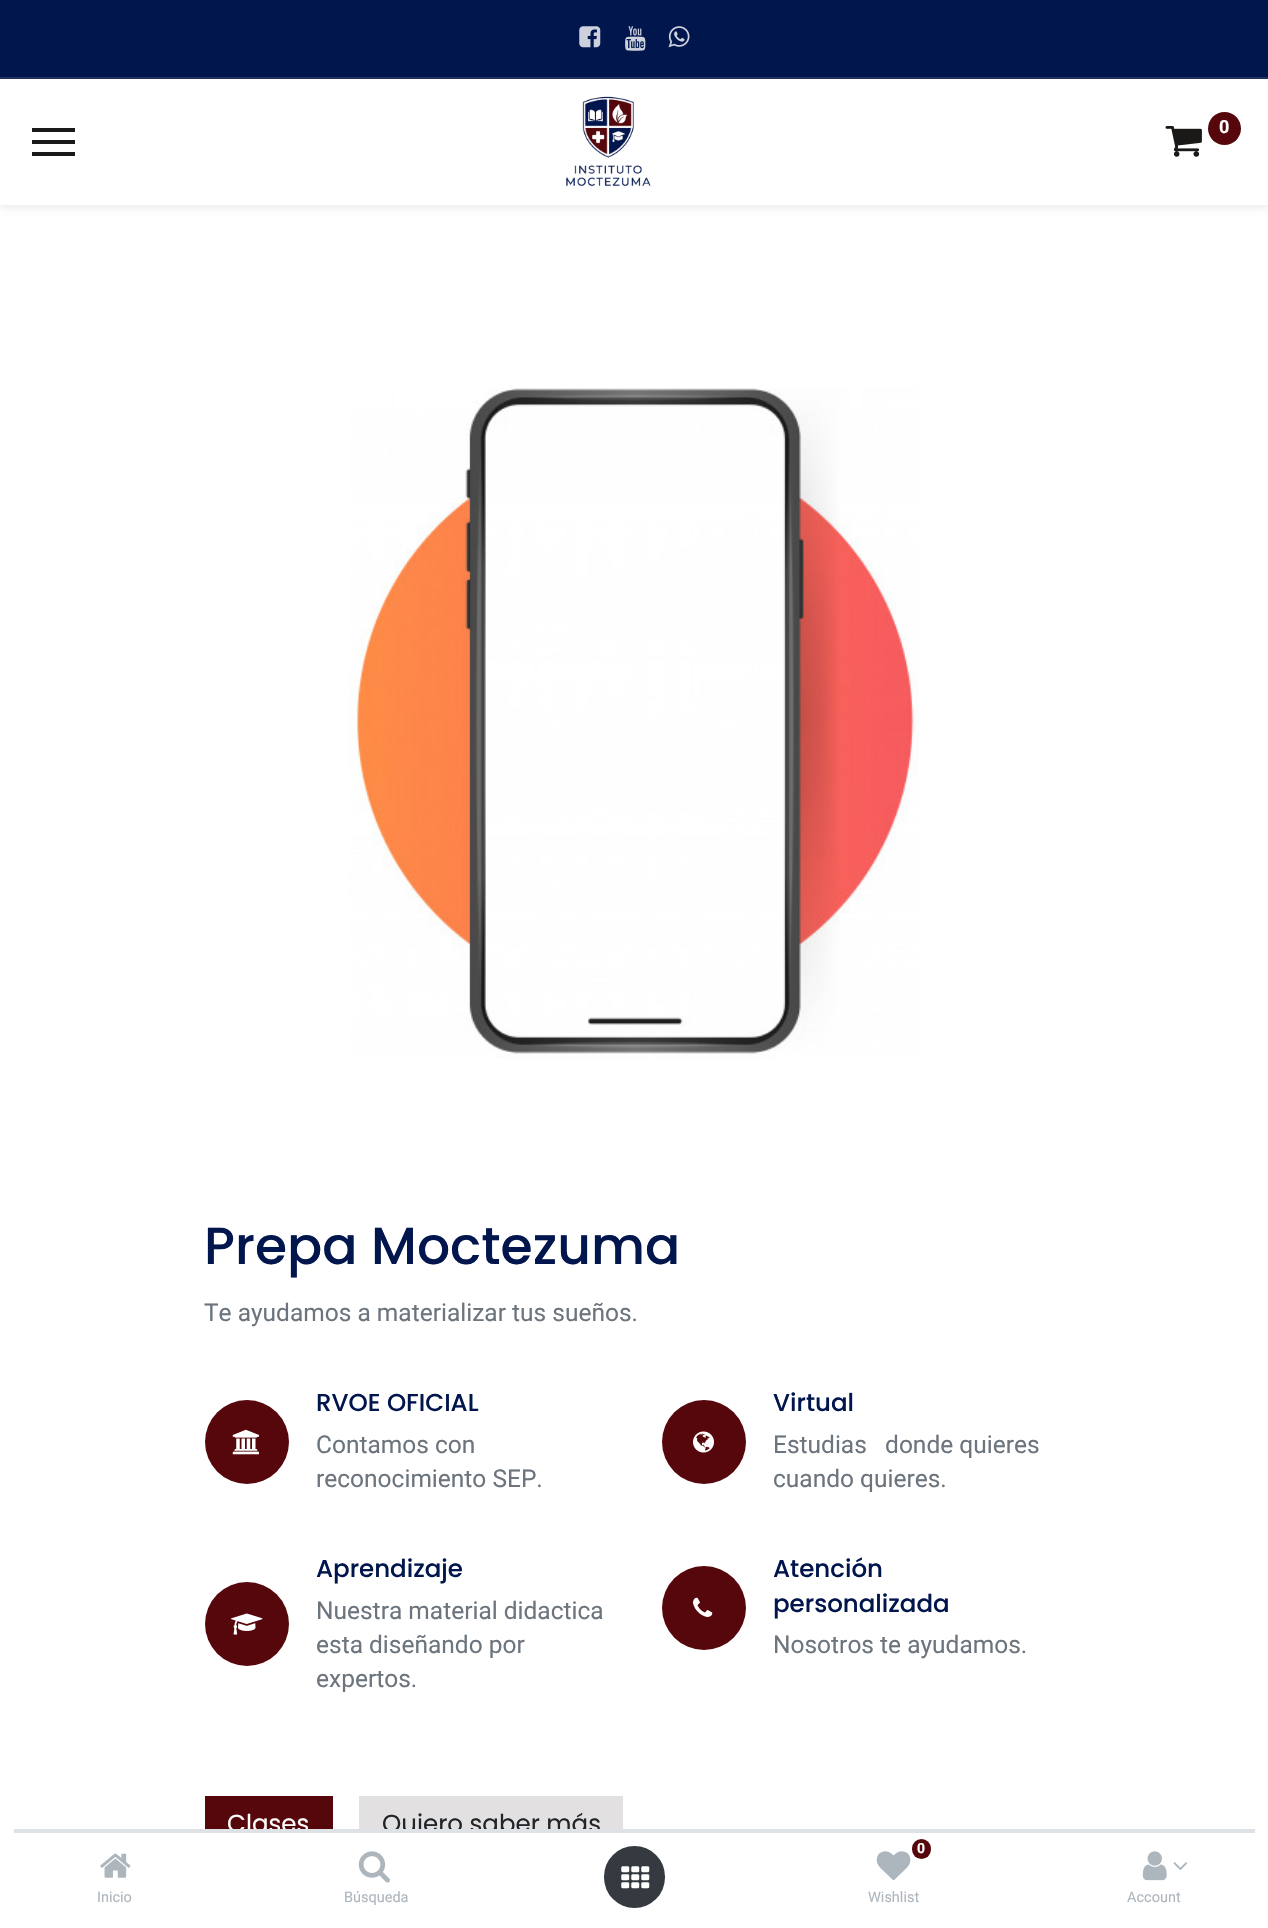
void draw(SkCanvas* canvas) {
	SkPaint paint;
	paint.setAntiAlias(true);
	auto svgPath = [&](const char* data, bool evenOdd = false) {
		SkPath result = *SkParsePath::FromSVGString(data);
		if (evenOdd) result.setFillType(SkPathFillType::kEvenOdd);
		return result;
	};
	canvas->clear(0xffffffff);
	paint.setColor(0xff02164e);
	canvas->drawRect(SkRect::MakeXYWH(0, 0, 1268, 77), paint);
	paint.setColor(0xff203263);
	canvas->drawRect(SkRect::MakeXYWH(0, 77, 1268, 2), paint);
	canvas->drawImageRect(SkImages::DeferredFromEncodedData(SkData::MakeFromFileName("img1.png")), SkRect::MakeXYWH(579, 26, 22, 22), SkSamplingOptions());
	canvas->drawImageRect(SkImages::DeferredFromEncodedData(SkData::MakeFromFileName("img2.png")), SkRect::MakeXYWH(625, 26, 21, 25), SkSamplingOptions());
	canvas->drawImageRect(SkImages::DeferredFromEncodedData(SkData::MakeFromFileName("img3.png")), SkRect::MakeXYWH(668, 26, 22, 22), SkSamplingOptions());
	paint.setColor(0x12000000);
	paint.setMaskFilter(SkMaskFilter::MakeBlur(kNormal_SkBlurStyle, 3.5));
	canvas->drawRect(SkRect::MakeXYWH(0, 82, 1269, 126), paint);
	paint.setMaskFilter(nullptr);
	paint.setColor(0xffffffff);
	canvas->drawRect(SkRect::MakeXYWH(0, 79, 1268, 126), paint);
	canvas->drawImageRect(SkImages::DeferredFromEncodedData(SkData::MakeFromFileName("img4.png")), SkRect::MakeXYWH(566, 96, 85, 91), SkSamplingOptions());
	canvas->drawImageRect(SkImages::DeferredFromEncodedData(SkData::MakeFromFileName("img5.png")), SkRect::MakeXYWH(1165, 126, 37, 31), SkSamplingOptions());
	paint.setColor(0xff56070c);
	canvas->drawCircle(1224.5, 128.5, 16.5, paint);
	SkFont f1(fontMgr->matchFamilyStyle("Roboto", SkFontStyle::Bold()), 18);
	f1.setSubpixel(true);
	paint.setColor(0xffffffff);
	canvas->drawString("0", 1219, 133, f1, paint);
	paint.setColor(0xff1b1818);
	canvas->drawRect(SkRect::MakeXYWH(32, 128, 43, 4), paint);
	canvas->drawRect(SkRect::MakeXYWH(32, 140, 43, 4), paint);
	canvas->drawRect(SkRect::MakeXYWH(32, 152, 43, 4), paint);
	canvas->drawImageRect(SkImages::DeferredFromEncodedData(SkData::MakeFromFileName("img6.png")), SkRect::MakeXYWH(349, 388, 570, 671), SkSamplingOptions());
	SkFont f2(fontMgr->matchFamilyStyle("Poppins", SkFontStyle(500, SkFontStyle::kNormal_Width, SkFontStyle::kUpright_Slant)), 52);
	f2.setSubpixel(true);
	paint.setColor(0xff02164e);
	canvas->drawString("Prepa Moctezuma", 204, 1264, f2, paint);
	SkFont f3(fontMgr->matchFamilyStyle("Roboto", SkFontStyle::Normal()), 24.5);
	f3.setSubpixel(true);
	paint.setColor(0xff6c757d);
	canvas->drawString("Te ayudamos a materializar tus sueños.", 204, 1321, f3, paint);
	paint.setColor(0xff56070c);
	canvas->drawCircle(247, 1442, 42, paint);
	canvas->drawImageRect(SkImages::DeferredFromEncodedData(SkData::MakeFromFileName("img7.png")), SkRect::MakeXYWH(232, 1429, 27, 26), SkSamplingOptions());
	SkFont f4(fontMgr->matchFamilyStyle("Poppins", SkFontStyle(500, SkFontStyle::kNormal_Width, SkFontStyle::kUpright_Slant)), 24.5);
	f4.setSubpixel(true);
	paint.setColor(0xff02164e);
	canvas->drawString("RVOE OFICIAL", 316, 1411, f4, paint);
	paint.setColor(0xff6c757d);
	canvas->drawString("Contamos con", 316, 1453, f3, paint);
	canvas->drawString("reconocimiento SEP.", 316, 1487, f3, paint);
	paint.setColor(0xff56070c);
	canvas->drawCircle(704, 1442, 42, paint);
	canvas->drawImageRect(SkImages::DeferredFromEncodedData(SkData::MakeFromFileName("img8.png")), SkRect::MakeXYWH(693, 1431, 21, 22), SkSamplingOptions());
	paint.setColor(0xff02164e);
	canvas->drawString("Virtual", 773, 1411, f4, paint);
	paint.setColor(0xff6c757d);
	canvas->drawString("Estudias   donde quieres", 773, 1453, f3, paint);
	canvas->drawString("cuando quieres.", 773, 1487, f3, paint);
	paint.setColor(0xff56070c);
	canvas->drawCircle(247, 1624, 42, paint);
	canvas->drawImageRect(SkImages::DeferredFromEncodedData(SkData::MakeFromFileName("img9.png")), SkRect::MakeXYWH(231, 1613, 32, 22), SkSamplingOptions());
	paint.setColor(0xff02164e);
	canvas->drawString("Aprendizaje", 316, 1577, f4, paint);
	paint.setColor(0xff6c757d);
	canvas->drawString("Nuestra material didactica", 316, 1619, f3, paint);
	canvas->drawString("esta diseñando por", 316, 1653, f3, paint);
	canvas->drawString("expertos.", 316, 1687, f3, paint);
	paint.setColor(0xff56070c);
	canvas->drawCircle(704, 1608, 42, paint);
	canvas->drawImageRect(SkImages::DeferredFromEncodedData(SkData::MakeFromFileName("img10.png")), SkRect::MakeXYWH(693, 1597, 20, 20), SkSamplingOptions());
	paint.setColor(0xff02164e);
	canvas->drawString("Atención", 773, 1577, f4, paint);
	canvas->drawString("personalizada", 773, 1612, f4, paint);
	paint.setColor(0xff6c757d);
	canvas->drawString("Nosotros te ayudamos.", 773, 1653, f3, paint);
	paint.setColor(0xff56070c);
	canvas->drawRect(SkRect::MakeXYWH(205, 1796, 128, 33), paint);
	SkFont f5(fontMgr->matchFamilyStyle("Poppins", SkFontStyle::Normal()), 24.5);
	f5.setSubpixel(true);
	paint.setColor(0xffffffff);
	canvas->drawString("Clases", 227, 1832, f5, paint);
	paint.setColor(0xffe2e0e0);
	canvas->drawRect(SkRect::MakeXYWH(359, 1796, 264, 33), paint);
	paint.setColor(0xff212529);
	canvas->drawString("Quiero saber más", 382, 1832, f5, paint);
	paint.setColor(0xffffffff);
	canvas->drawPath(svgPath("M28 1829H1241C1256.5 1829 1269 1841.5 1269 1857V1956H0V1857C0 1841.5 12.5 1829 28 1829Z"), paint);
	paint.setColor(0xffdee2e6);
	canvas->drawRect(SkRect::MakeXYWH(14, 1829, 1241, 4), paint);
	canvas->drawImageRect(SkImages::DeferredFromEncodedData(SkData::MakeFromFileName("img11.png")), SkRect::MakeXYWH(100, 1853, 31, 25), SkSamplingOptions());
	SkFont f6(fontMgr->matchFamilyStyle("Roboto", SkFontStyle::Normal()), 14.5);
	f6.setSubpixel(true);
	paint.setColor(0xffadb5bd);
	canvas->drawString("Inicio", 97, 1902, f6, paint);
	canvas->drawImageRect(SkImages::DeferredFromEncodedData(SkData::MakeFromFileName("img12.png")), SkRect::MakeXYWH(358, 1851, 32, 32), SkSamplingOptions());
	canvas->drawString("Búsqueda", 344, 1902, f6, paint);
	paint.setColor(0xff343a40);
	canvas->drawRoundRect(SkRect::MakeXYWH(604, 1846, 61, 62), 30.5, 30.5, paint);
	canvas->drawImageRect(SkImages::DeferredFromEncodedData(SkData::MakeFromFileName("img13.png")), SkRect::MakeXYWH(621, 1866, 29, 23), SkSamplingOptions());
	paint.setColor(0xff56070c);
	canvas->drawRoundRect(SkRect::MakeXYWH(912, 1839, 19, 20), 9.5, 9.5, paint);
	SkFont f7(fontMgr->matchFamilyStyle("Roboto", SkFontStyle::Bold()), 14);
	f7.setSubpixel(true);
	paint.setColor(0xffffffff);
	canvas->drawString("0", 917, 1853, f7, paint);
	canvas->drawImageRect(SkImages::DeferredFromEncodedData(SkData::MakeFromFileName("img14.png")), SkRect::MakeXYWH(876, 1851, 35, 30), SkSamplingOptions());
	paint.setColor(0xffadb5bd);
	canvas->drawString("Wishlist", 868, 1902, f6, paint);
	canvas->drawImageRect(SkImages::DeferredFromEncodedData(SkData::MakeFromFileName("img15.png")), SkRect::MakeXYWH(1142, 1851, 25, 30), SkSamplingOptions());
	canvas->drawImageRect(SkImages::DeferredFromEncodedData(SkData::MakeFromFileName("img16.png")), SkRect::MakeXYWH(1173, 1862, 15, 8), SkSamplingOptions());
	canvas->drawString("Account", 1127, 1902, f6, paint);
}
